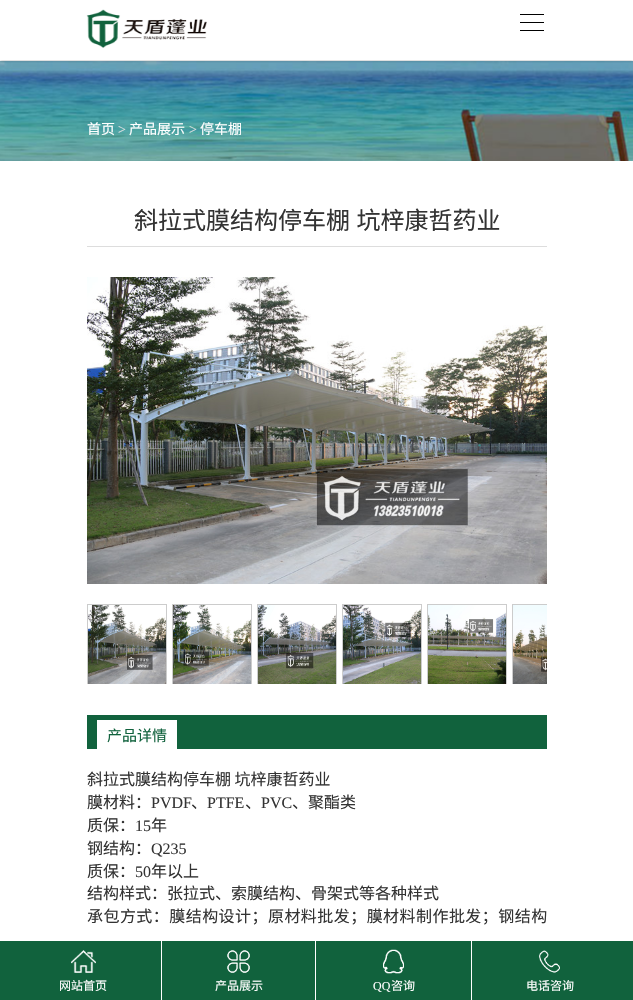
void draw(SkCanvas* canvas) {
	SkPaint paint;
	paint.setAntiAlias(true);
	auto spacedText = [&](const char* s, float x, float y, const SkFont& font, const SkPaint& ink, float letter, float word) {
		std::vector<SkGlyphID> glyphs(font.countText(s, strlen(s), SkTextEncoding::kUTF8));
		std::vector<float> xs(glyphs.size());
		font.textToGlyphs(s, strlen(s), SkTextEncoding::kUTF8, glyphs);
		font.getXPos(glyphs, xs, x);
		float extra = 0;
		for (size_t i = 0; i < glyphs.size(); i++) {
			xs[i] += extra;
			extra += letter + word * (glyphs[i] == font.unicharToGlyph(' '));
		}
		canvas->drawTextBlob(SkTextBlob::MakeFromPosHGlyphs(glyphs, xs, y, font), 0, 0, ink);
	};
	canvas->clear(0xffffffff);
	canvas->drawImageRect(SkImages::DeferredFromEncodedData(SkData::MakeFromFileName("img2.png")), SkRect::MakeXYWH(0, 61, 633, 100), SkSamplingOptions());
	canvas->save();
	canvas->clipRect(SkRect::MakeXYWH(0, 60, 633, 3));
	paint.setColor(0x33000000);
	paint.setMaskFilter(SkMaskFilter::MakeBlur(kNormal_SkBlurStyle, 1.5));
	canvas->drawRect(SkRect::MakeXYWH(0, 1, 633, 60), paint);
	paint.setMaskFilter(nullptr);
	canvas->restore();
	canvas->drawImageRect(SkImages::DeferredFromEncodedData(SkData::MakeFromFileName("img1.png")), SkRect::MakeXYWH(86, 9, 121, 39), SkSamplingOptions());
	paint.setColor(0xff000000);
	canvas->drawRect(SkRect::MakeXYWH(520, 14, 24, 1), paint);
	canvas->drawRect(SkRect::MakeXYWH(520, 22, 24, 1), paint);
	canvas->drawRect(SkRect::MakeXYWH(520, 30, 24, 1), paint);
	SkFont f1(fontMgr->matchFamilyStyle("Noto Sans CJK SC", SkFontStyle::Normal()), 14);
	f1.setSubpixel(true);
	paint.setColor(0xffffffff);
	canvas->drawString("首页", 87, 134, f1, paint);
	SkFont f2(fontMgr->matchFamilyStyle("Liberation Serif", SkFontStyle::Normal()), 14);
	f2.setSubpixel(true);
	paint.setColor(0xffe1e1e1);
	canvas->drawString(">", 118, 134, f2, paint);
	paint.setColor(0xffffffff);
	canvas->drawString("产品展示", 129, 134, f1, paint);
	paint.setColor(0xffe1e1e1);
	canvas->drawString(">", 189, 134, f2, paint);
	paint.setColor(0xffffffff);
	canvas->drawString("停车棚", 200, 134, f1, paint);
	paint.setColor(0xffdddddd);
	canvas->drawRect(SkRect::MakeXYWH(87, 246, 460, 1), paint);
	SkFont f3(fontMgr->matchFamilyStyle("Noto Sans CJK SC", SkFontStyle::Normal()), 24);
	f3.setSubpixel(true);
	paint.setColor(0xff333333);
	spacedText("斜拉式膜结构停车棚 坑梓康哲药业", 134, 229, f3, paint, 0, 1);
	canvas->drawImageRect(SkImages::DeferredFromEncodedData(SkData::MakeFromFileName("img3.png")), SkRect::MakeXYWH(87, 277, 460, 307), SkSamplingOptions());
	paint.setStroke(true);
	paint.setStrokeWidth(1);
	paint.setColor(0xffcccccc);
	canvas->drawRect(SkRect::MakeXYWH(87.5, 604.5, 79, 79), paint);
	canvas->drawImageRect(SkImages::DeferredFromEncodedData(SkData::MakeFromFileName("img4.png")), SkRect::MakeXYWH(88, 605, 78, 79), SkSamplingOptions());
	canvas->drawRect(SkRect::MakeXYWH(172.5, 604.5, 79, 79), paint);
	canvas->drawImageRect(SkImages::DeferredFromEncodedData(SkData::MakeFromFileName("img5.png")), SkRect::MakeXYWH(173, 605, 78, 79), SkSamplingOptions());
	canvas->drawRect(SkRect::MakeXYWH(257.5, 604.5, 79, 79), paint);
	canvas->drawImageRect(SkImages::DeferredFromEncodedData(SkData::MakeFromFileName("img6.png")), SkRect::MakeXYWH(258, 605, 78, 79), SkSamplingOptions());
	canvas->drawRect(SkRect::MakeXYWH(342.5, 604.5, 79, 79), paint);
	canvas->drawImageRect(SkImages::DeferredFromEncodedData(SkData::MakeFromFileName("img7.png")), SkRect::MakeXYWH(343, 605, 78, 79), SkSamplingOptions());
	canvas->drawRect(SkRect::MakeXYWH(427.5, 604.5, 79, 79), paint);
	canvas->drawImageRect(SkImages::DeferredFromEncodedData(SkData::MakeFromFileName("img8.png")), SkRect::MakeXYWH(428, 605, 78, 79), SkSamplingOptions());
	canvas->save();
	canvas->clipRect(SkRect::MakeXYWH(87, 604, 460, 80));
	canvas->drawRect(SkRect::MakeXYWH(512.5, 604.5, 79, 79), paint);
	canvas->restore();
	canvas->drawImageRect(SkImages::DeferredFromEncodedData(SkData::MakeFromFileName("img9.png")), SkRect::MakeXYWH(513, 605, 34, 79), SkSamplingOptions());
	paint.setStroke(false);
	paint.setColor(0xff11623d);
	canvas->drawRect(SkRect::MakeXYWH(87, 715, 460, 34), paint);
	paint.setColor(0xffffffff);
	canvas->drawRect(SkRect::MakeXYWH(97, 720, 80, 29), paint);
	SkFont f4(fontMgr->matchFamilyStyle("Noto Sans CJK SC", SkFontStyle::Normal()), 15);
	f4.setSubpixel(true);
	paint.setColor(0xff11623d);
	canvas->drawString("产品详情", 107, 741, f4, paint);
	SkFont f5(fontMgr->matchFamilyStyle("Noto Sans CJK SC", SkFontStyle::Normal()), 16);
	f5.setSubpixel(true);
	paint.setColor(0xff333333);
	canvas->drawString("斜拉式膜结构停车棚 坑梓康哲药业", 87, 785, f5, paint);
	canvas->drawString("膜材料：", 87, 808, f5, paint);
	SkFont f6(fontMgr->matchFamilyStyle("Liberation Serif", SkFontStyle::Normal()), 16);
	f6.setSubpixel(true);
	canvas->drawString("PVDF", 151, 808, f6, paint);
	canvas->drawString("、", 191, 808, f5, paint);
	canvas->drawString("PTFE", 207, 808, f6, paint);
	canvas->drawString("、", 245, 808, f5, paint);
	canvas->drawString("PVC", 261, 808, f6, paint);
	canvas->drawString("、聚酯类", 292, 808, f5, paint);
	canvas->drawString("质保：", 87, 831, f5, paint);
	canvas->drawString("15", 135, 831, f6, paint);
	canvas->drawString("年", 151, 831, f5, paint);
	canvas->drawString("钢结构：", 87, 854, f5, paint);
	canvas->drawString("Q235", 151, 854, f6, paint);
	canvas->drawString("质保：", 87, 877, f5, paint);
	canvas->drawString("50", 135, 877, f6, paint);
	canvas->drawString("年以上", 151, 877, f5, paint);
	canvas->drawString("结构样式：张拉式、索膜结构、骨架式等各种样式", 87, 899, f5, paint);
	spacedText("承包方式：膜结构设计；原材料批发；膜材料制作批发；钢结构", 87, 922, f5, paint, 0.45, 0);
	paint.setColor(0xff11623d);
	canvas->drawRect(SkRect::MakeXYWH(0, 941, 633, 59), paint);
	canvas->drawImageRect(SkImages::DeferredFromEncodedData(SkData::MakeFromFileName("img10.png")), SkRect::MakeXYWH(71, 950, 25, 23), SkSamplingOptions());
	SkFont f7(fontMgr->matchFamilyStyle("Noto Sans CJK SC", SkFontStyle::Normal()), 12);
	f7.setSubpixel(true);
	paint.setColor(0xffffffff);
	canvas->drawString("网站首页", 59, 990, f7, paint);
	canvas->drawRect(SkRect::MakeXYWH(315, 941, 1, 59), paint);
	canvas->drawRect(SkRect::MakeXYWH(161, 941, 1, 59), paint);
	canvas->drawImageRect(SkImages::DeferredFromEncodedData(SkData::MakeFromFileName("img11.png")), SkRect::MakeXYWH(227, 950, 23, 23), SkSamplingOptions());
	canvas->drawString("产品展示", 215, 990, f7, paint);
	canvas->drawRect(SkRect::MakeXYWH(471, 941, 1, 59), paint);
	canvas->drawImageRect(SkImages::DeferredFromEncodedData(SkData::MakeFromFileName("img12.png")), SkRect::MakeXYWH(383, 949, 21, 25), SkSamplingOptions());
	SkFont f8(fontMgr->matchFamilyStyle("Liberation Serif", SkFontStyle::Normal()), 12);
	f8.setSubpixel(true);
	canvas->drawString("QQ", 373, 990, f8, paint);
	canvas->drawString("咨询", 391, 990, f7, paint);
	canvas->drawImageRect(SkImages::DeferredFromEncodedData(SkData::MakeFromFileName("img13.png")), SkRect::MakeXYWH(539, 950, 21, 23), SkSamplingOptions());
	canvas->drawString("电话咨询", 526, 990, f7, paint);
}
